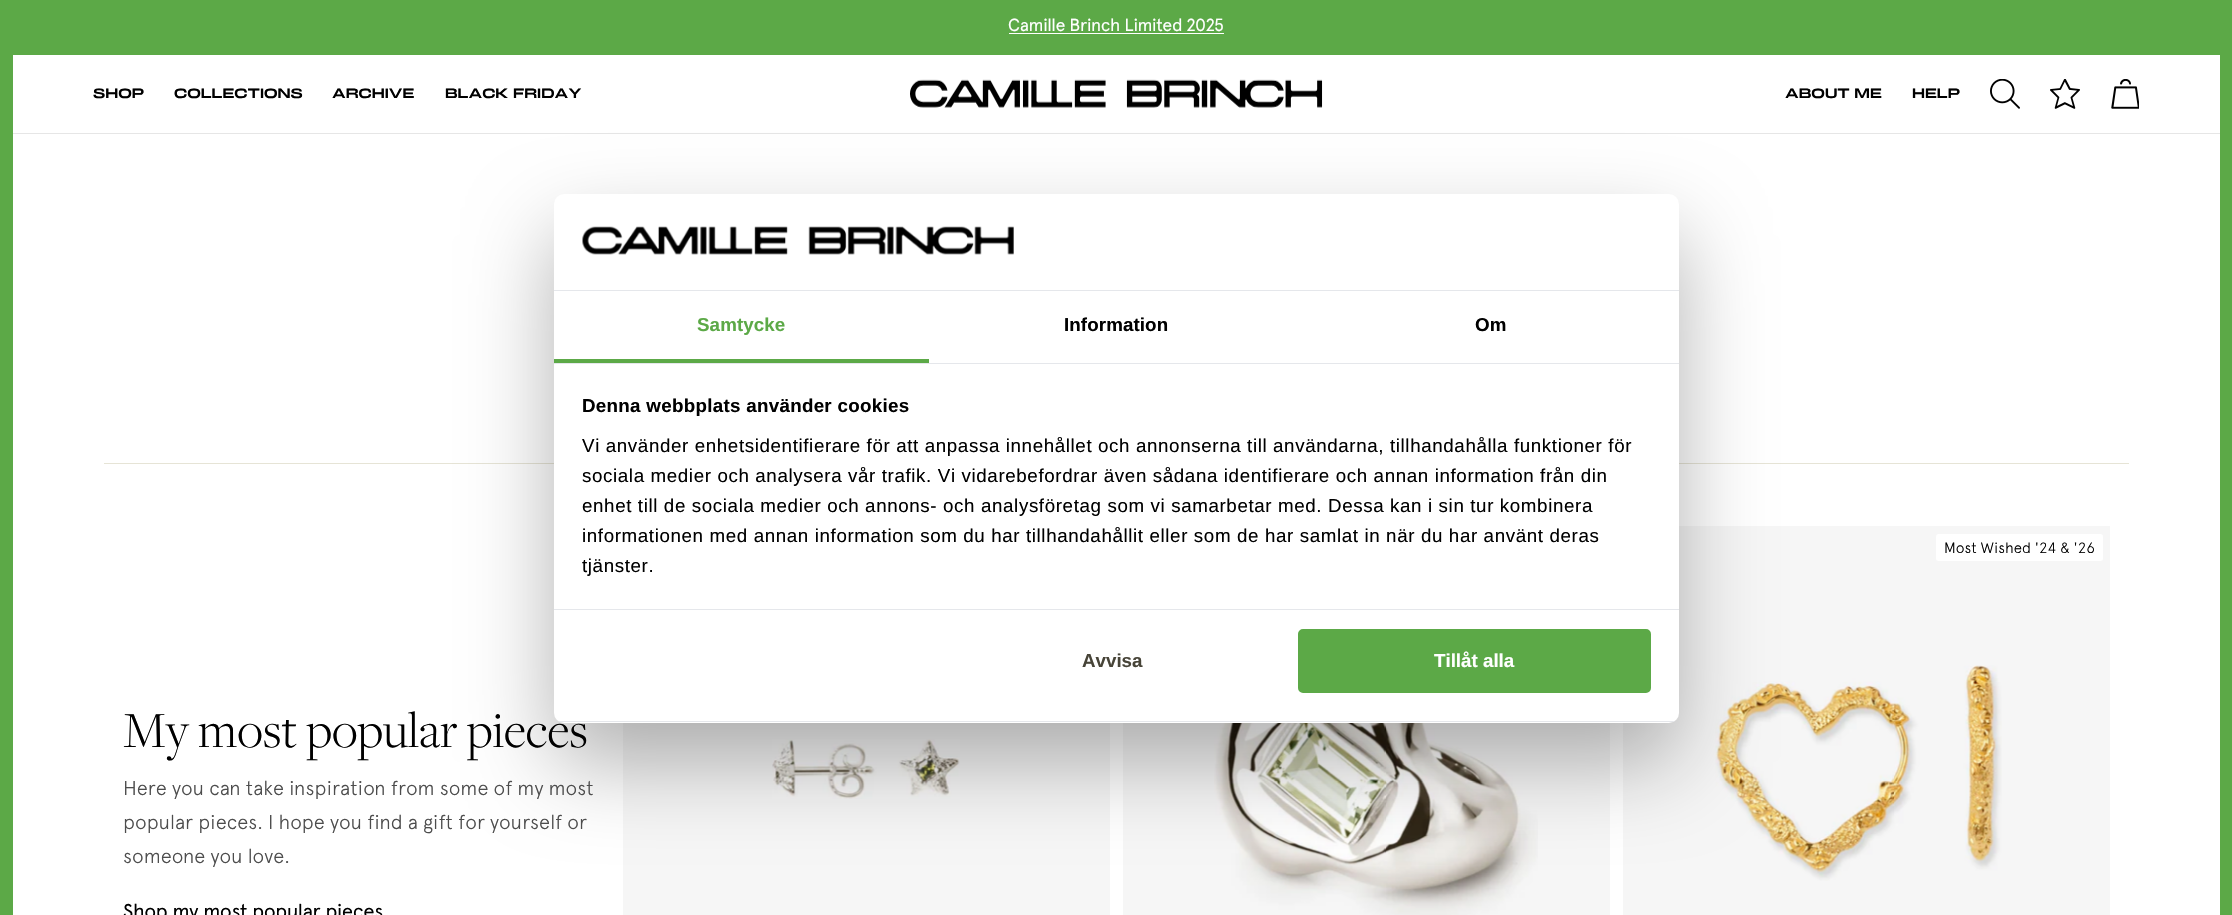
void draw(SkCanvas* canvas) {
	SkPaint paint;
	paint.setAntiAlias(true);
	auto spacedText = [&](const char* s, float x, float y, const SkFont& font, const SkPaint& ink, float letter, float word) {
		std::vector<SkGlyphID> glyphs(font.countText(s, strlen(s), SkTextEncoding::kUTF8));
		std::vector<float> xs(glyphs.size());
		font.textToGlyphs(s, strlen(s), SkTextEncoding::kUTF8, glyphs);
		font.getXPos(glyphs, xs, x);
		float extra = 0;
		for (size_t i = 0; i < glyphs.size(); i++) {
			xs[i] += extra;
			extra += letter + word * (glyphs[i] == font.unicharToGlyph(' '));
		}
		canvas->drawTextBlob(SkTextBlob::MakeFromPosHGlyphs(glyphs, xs, y, font), 0, 0, ink);
	};
	auto svgPath = [&](const char* data, bool evenOdd = false) {
		SkPath result = *SkParsePath::FromSVGString(data);
		if (evenOdd) result.setFillType(SkPathFillType::kEvenOdd);
		return result;
	};
	canvas->clear(0xff5ca947);
	SkFont f1(fontMgr->matchFamilyStyle("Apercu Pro", SkFontStyle::Normal()), 17.5);
	f1.setSubpixel(true);
	paint.setColor(0xffffffff);
	canvas->drawString("Camille Brinch Limited 2025", 1008, 31, f1, paint);
	canvas->drawRect(SkRect::MakeXYWH(1009, 33, 215, 1), paint);
	canvas->drawRect(SkRect::MakeXYWH(13, 55, 2207, 78), paint);
	SkFont f2(fontMgr->matchFamilyStyle("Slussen", SkFontStyle::Bold()), 12.5);
	f2.setSubpixel(true);
	paint.setColor(0xff000000);
	canvas->drawString("SHOP", 93, 98, f2, paint);
	canvas->drawString("COLLECTIONS", 174, 98, f2, paint);
	canvas->drawString("ARCHIVE", 332, 98, f2, paint);
	canvas->drawString("BLACK FRIDAY", 445, 98, f2, paint);
	canvas->drawImageRect(SkImages::DeferredFromEncodedData(SkData::MakeFromFileName("img1.png")), SkRect::MakeXYWH(910, 79, 413, 29), SkSamplingOptions());
	canvas->drawString("ABOUT ME", 1785, 98, f2, paint);
	canvas->drawString("HELP", 1912, 98, f2, paint);
	canvas->drawImageRect(SkImages::DeferredFromEncodedData(SkData::MakeFromFileName("img2.png")), SkRect::MakeXYWH(1990, 79, 30, 30), SkSamplingOptions());
	canvas->drawImageRect(SkImages::DeferredFromEncodedData(SkData::MakeFromFileName("img3.png")), SkRect::MakeXYWH(2050, 79, 30, 30), SkSamplingOptions());
	canvas->drawImageRect(SkImages::DeferredFromEncodedData(SkData::MakeFromFileName("img4.png")), SkRect::MakeXYWH(2111, 79, 28, 30), SkSamplingOptions());
	paint.setColor(0xffffffff);
	canvas->drawRect(SkRect::MakeXYWH(13, 134, 2207, 781), paint);
	paint.setColor(0xffe6e6e6);
	canvas->drawRect(SkRect::MakeXYWH(13, 133, 2207, 1), paint);
	paint.setColor(0xffe6e4d6);
	canvas->drawRect(SkRect::MakeXYWH(104, 463, 2025, 1), paint);
	paint.setColor(0xfff6f6f6);
	canvas->drawRect(SkRect::MakeXYWH(1623, 526, 487, 389), paint);
	canvas->drawImageRect(SkImages::DeferredFromEncodedData(SkData::MakeFromFileName("img6.png")), SkRect::MakeXYWH(1715, 665, 287, 216), SkSamplingOptions());
	canvas->drawRect(SkRect::MakeXYWH(623, 723, 487, 192), paint);
	canvas->drawImageRect(SkImages::DeferredFromEncodedData(SkData::MakeFromFileName("img7.png")), SkRect::MakeXYWH(772, 739, 188, 60), SkSamplingOptions());
	canvas->drawRect(SkRect::MakeXYWH(1123, 723, 487, 192), paint);
	canvas->drawImageRect(SkImages::DeferredFromEncodedData(SkData::MakeFromFileName("img8.png")), SkRect::MakeXYWH(1214, 723, 324, 192), SkSamplingOptions());
	paint.setColor(0x4d000000);
	paint.setMaskFilter(SkMaskFilter::MakeBlur(kNormal_SkBlurStyle, 42.5));
	canvas->drawRoundRect(SkRect::MakeXYWH(554, 234, 1125, 529), 10, 10, paint);
	paint.setMaskFilter(nullptr);
	SkFont f3(fontMgr->matchFamilyStyle("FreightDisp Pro", SkFontStyle(300, SkFontStyle::kNormal_Width, SkFontStyle::kUpright_Slant)), 52.5);
	f3.setSubpixel(true);
	paint.setColor(0xff000000);
	canvas->drawString("My most popular pieces", 123, 747, f3, paint);
	paint.setColor(0xffffffff);
	canvas->drawRoundRect(SkRect::MakeXYWH(554, 194, 1125, 529), 10, 10, paint);
	paint.setColor(0xffe5e7eb);
	canvas->drawRect(SkRect::MakeXYWH(554, 290, 1125, 1), paint);
	canvas->drawImageRect(SkImages::DeferredFromEncodedData(SkData::MakeFromFileName("img5.png")), SkRect::MakeXYWH(582, 226, 432, 29), SkSamplingOptions());
	canvas->drawRect(SkRect::MakeXYWH(554, 363, 1125, 1), paint);
	paint.setColor(0xff5ca947);
	canvas->drawRect(SkRect::MakeXYWH(554, 359, 375, 4), paint);
	SkFont f4(fontMgr->matchFamilyStyle("Liberation Sans", SkFontStyle::Bold()), 18.75);
	f4.setSubpixel(true);
	spacedText("Samtycke", 697, 331, f4, paint, 0.1, 0);
	paint.setColor(0xff000000);
	spacedText("Information", 1064, 331, f4, paint, 0.1, 0);
	spacedText("Om", 1475, 331, f4, paint, 0.1, 0);
	paint.setColor(0xffe5e7eb);
	canvas->drawRect(SkRect::MakeXYWH(554, 609, 1125, 1), paint);
	paint.setColor(0xff000000);
	spacedText("Denna webbplats använder cookies", 582, 412, f4, paint, 0.3, 0);
	SkFont f5(fontMgr->matchFamilyStyle("Liberation Sans", SkFontStyle::Normal()), 18.75);
	f5.setSubpixel(true);
	spacedText("Vi använder enhetsidentifierare för att anpassa innehållet och annonserna till användarna, tillhandahålla funktioner för", 582, 452, f5, paint, 0.62, 0);
	spacedText("sociala medier och analysera vår trafik. Vi vidarebefordrar även sådana identifierare och annan information från din", 582, 482, f5, paint, 0.62, 0);
	spacedText("enhet till de sociala medier och annons- och analysföretag som vi samarbetar med. Dessa kan i sin tur kombinera", 582, 512, f5, paint, 0.62, 0);
	spacedText("informationen med annan information som du har tillhandahållit eller som de har samlat in när du har använt deras", 582, 542, f5, paint, 0.62, 0);
	spacedText("tjänster.", 582, 572, f5, paint, 0.62, 0);
	canvas->save();
	canvas->clipPath(svgPath("M564 194H1669C1674.5 194 1679 198.5 1679 204V713C1679 718.5 1674.5 723 1669 723H564C558.5 723 554 718.5 554 713V204C554 198.5 558.5 194 564 194Z"), true);
	paint.setColor(0xffe5e7eb);
	canvas->drawRect(SkRect::MakeXYWH(554, 721, 1125, 1), paint);
	canvas->restore();
	paint.setColor(0xff474438);
	canvas->drawString("Avvisa", 1082, 667, f4, paint);
	paint.setColor(0xff5ca947);
	canvas->drawRoundRect(SkRect::MakeXYWH(1299.5, 630.5, 350, 61), 3.5, 3.5, paint);
	paint.setStroke(true);
	paint.setStrokeWidth(3);
	canvas->drawRoundRect(SkRect::MakeXYWH(1299.5, 630.5, 350, 61), 3.5, 3.5, paint);
	paint.setStroke(false);
	paint.setColor(0xffffffff);
	canvas->drawString("Tillåt alla", 1434, 667, f4, paint);
	canvas->drawRoundRect(SkRect::MakeXYWH(1936, 534, 167, 27), 2.5, 2.5, paint);
	SkFont f6(fontMgr->matchFamilyStyle("Apercu Pro", SkFontStyle(300, SkFontStyle::kNormal_Width, SkFontStyle::kUpright_Slant)), 15);
	f6.setSubpixel(true);
	paint.setColor(0xff000000);
	canvas->drawString("Most Wished '24 & '26", 1944, 553, f6, paint);
	SkFont f7(fontMgr->matchFamilyStyle("Apercu Pro", SkFontStyle(300, SkFontStyle::kNormal_Width, SkFontStyle::kUpright_Slant)), 20);
	f7.setSubpixel(true);
	paint.setColor(0xff4d4d4d);
	canvas->drawString("Here you can take inspiration from some of my most", 123, 795, f7, paint);
	canvas->drawString("popular pieces. I hope you find a gift for yourself or", 123, 829, f7, paint);
	canvas->drawString("someone you love.", 123, 863, f7, paint);
	SkFont f8(fontMgr->matchFamilyStyle("Apercu Pro", SkFontStyle::Normal()), 20);
	f8.setSubpixel(true);
	paint.setColor(0xff000000);
	canvas->drawString("Shop my most popular pieces", 123, 918, f8, paint);
}
